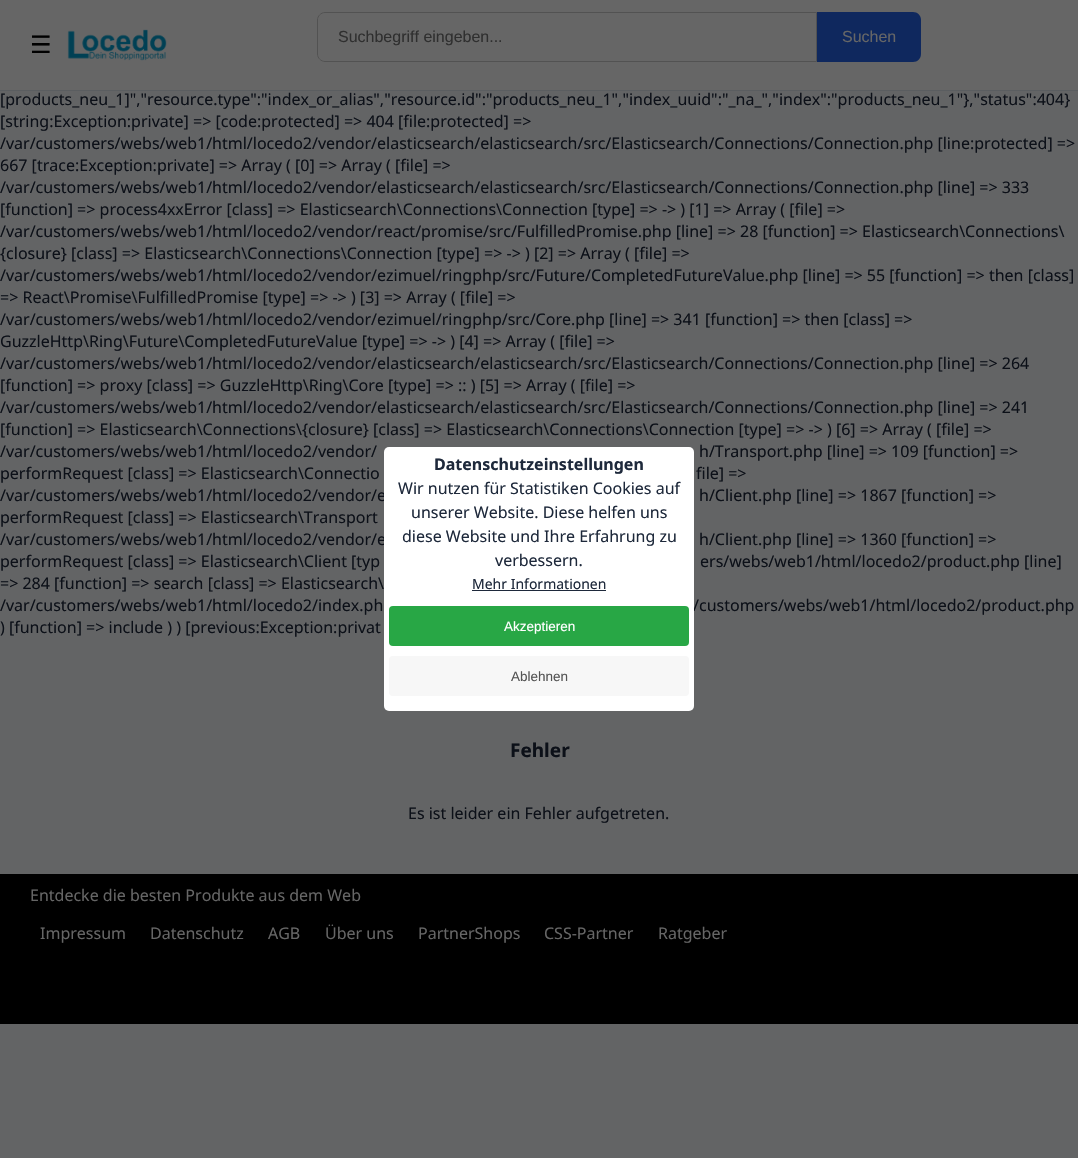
void draw(SkCanvas* canvas) {
	SkPaint paint;
	paint.setAntiAlias(true);
	auto svgPath = [&](const char* data, bool evenOdd = false) {
		SkPath result = *SkParsePath::FromSVGString(data);
		if (evenOdd) result.setFillType(SkPathFillType::kEvenOdd);
		return result;
	};
	canvas->clear(0xff636465);
	paint.setColor(0xff666666);
	canvas->drawRect(SkRect::MakeXYWH(0, 0, 1078, 90), paint);
	paint.setColor(0xff5a5d60);
	canvas->drawRect(SkRect::MakeXYWH(0, 90, 1078, 1), paint);
	SkFont f1(fontMgr->matchFamilyStyle("DejaVu Sans", SkFontStyle::Normal()), 24);
	f1.setSubpixel(true);
	paint.setColor(0xff000000);
	canvas->drawString("☰", 30, 53, f1, paint);
	canvas->drawImageRect(SkImages::DeferredFromEncodedData(SkData::MakeFromFileName("img1.png")), SkRect::MakeXYWH(67, 29, 100, 32), SkSamplingOptions());
	paint.setStroke(true);
	paint.setStrokeWidth(1);
	paint.setColor(0xff525252);
	canvas->drawPath(svgPath("M325 12.5H816.5V61.5H325C321 61.5 317.5 58 317.5 54V20C317.5 16 321 12.5 325 12.5Z"), paint);
	SkFont f2(fontMgr->matchFamilyStyle("Liberation Sans", SkFontStyle::Normal()), 16);
	f2.setSubpixel(true);
	paint.setStroke(false);
	paint.setColor(0xff2f2f2f);
	canvas->drawString("Suchbegriff eingeben...", 338, 42, f2, paint);
	paint.setColor(0xff0f285e);
	canvas->drawPath(svgPath("M817 12H913C917.5 12 921 15.5 921 20V54C921 58.5 917.5 62 913 62H817Z"), paint);
	paint.setColor(0xff666666);
	canvas->drawString("Suchen", 842, 42, f2, paint);
	SkFont f3(fontMgr->matchFamilyStyle("Noto Sans", SkFontStyle::Normal()), 16);
	f3.setSubpixel(true);
	paint.setColor(0xff0c1018);
	canvas->drawString("[products_neu_1]\",\"resource.type\":\"index_or_alias\",\"resource.id\":\"products_neu_1\",\"index_uuid\":\"_na_\",\"index\":\"products_neu_1\"},\"status\":404}", 0, 105, f3, paint);
	canvas->drawString("[string:Exception:private] => [code:protected] => 404 [file:protected] =>", 0, 127, f3, paint);
	canvas->drawString("/var/customers/webs/web1/html/locedo2/vendor/elasticsearch/elasticsearch/src/Elasticsearch/Connections/Connection.php [line:protected] =>", 0, 149, f3, paint);
	canvas->drawString("667 [trace:Exception:private] => Array ( [0] => Array ( [file] =>", 0, 171, f3, paint);
	canvas->drawString("/var/customers/webs/web1/html/locedo2/vendor/elasticsearch/elasticsearch/src/Elasticsearch/Connections/Connection.php [line] => 333", 0, 193, f3, paint);
	canvas->drawString("[function] => process4xxError [class] => Elasticsearch\\Connections\\Connection [type] => -> ) [1] => Array ( [file] =>", 0, 215, f3, paint);
	canvas->drawString("/var/customers/webs/web1/html/locedo2/vendor/react/promise/src/FulfilledPromise.php [line] => 28 [function] => Elasticsearch\\Connections\\", 0, 237, f3, paint);
	canvas->drawString("{closure} [class] => Elasticsearch\\Connections\\Connection [type] => -> ) [2] => Array ( [file] =>", 0, 259, f3, paint);
	canvas->drawString("/var/customers/webs/web1/html/locedo2/vendor/ezimuel/ringphp/src/Future/CompletedFutureValue.php [line] => 55 [function] => then [class]", 0, 281, f3, paint);
	canvas->drawString("=> React\\Promise\\FulfilledPromise [type] => -> ) [3] => Array ( [file] =>", 0, 303, f3, paint);
	canvas->drawString("/var/customers/webs/web1/html/locedo2/vendor/ezimuel/ringphp/src/Core.php [line] => 341 [function] => then [class] =>", 0, 325, f3, paint);
	canvas->drawString("GuzzleHttp\\Ring\\Future\\CompletedFutureValue [type] => -> ) [4] => Array ( [file] =>", 0, 347, f3, paint);
	canvas->drawString("/var/customers/webs/web1/html/locedo2/vendor/elasticsearch/elasticsearch/src/Elasticsearch/Connections/Connection.php [line] => 264", 0, 369, f3, paint);
	canvas->drawString("[function] => proxy [class] => GuzzleHttp\\Ring\\Core [type] => :: ) [5] => Array ( [file] =>", 0, 391, f3, paint);
	canvas->drawString("/var/customers/webs/web1/html/locedo2/vendor/elasticsearch/elasticsearch/src/Elasticsearch/Connections/Connection.php [line] => 241", 0, 413, f3, paint);
	canvas->drawString("[function] => Elasticsearch\\Connections\\{closure} [class] => Elasticsearch\\Connections\\Connection [type] => -> ) [6] => Array ( [file] =>", 0, 435, f3, paint);
	canvas->drawString("/var/customers/webs/web1/html/locedo2/vendor/", 0, 457, f3, paint);
	canvas->drawString("h/Transport.php [line] => 109 [function] =>", 699, 457, f3, paint);
	canvas->drawString("performRequest [class] => Elasticsearch\\Connectio", 0, 479, f3, paint);
	canvas->drawString("/var/customers/webs/web1/html/locedo2/vendor/e", 0, 501, f3, paint);
	canvas->drawString("/var/customers/webs/web1/html/locedo2/vendor/e", 0, 545, f3, paint);
	canvas->drawString("/customers/webs/web1/html/locedo2/product.php", 693, 611, f3, paint);
	paint.setColor(0xffffffff);
	canvas->drawRoundRect(SkRect::MakeXYWH(384, 447, 310, 264), 5, 5, paint);
	SkFont f4(fontMgr->matchFamilyStyle("Noto Sans", SkFontStyle::Bold()), 16);
	f4.setSubpixel(true);
	paint.setColor(0xff1e293b);
	canvas->drawString("Datenschutzeinstellungen", 434, 470, f4, paint);
	canvas->drawString("Wir nutzen für Statistiken Cookies auf", 398, 494, f3, paint);
	canvas->drawString("unserer Website. Diese helfen uns", 411, 518, f3, paint);
	canvas->drawString("diese Website und Ihre Erfahrung zu", 402, 542, f3, paint);
	canvas->drawString("verbessern.", 495, 566, f3, paint);
	SkFont f5(fontMgr->matchFamilyStyle("Noto Sans", SkFontStyle::Normal()), 14);
	f5.setSubpixel(true);
	canvas->drawString("Mehr Informationen", 472, 589, f5, paint);
	canvas->drawRect(SkRect::MakeXYWH(472, 590, 134, 1), paint);
	paint.setColor(0xff28a745);
	canvas->drawRoundRect(SkRect::MakeXYWH(389, 606, 300, 40), 4, 4, paint);
	SkFont f6(fontMgr->matchFamilyStyle("Liberation Sans", SkFontStyle::Normal()), 13.5);
	f6.setSubpixel(true);
	paint.setColor(0xffffffff);
	canvas->drawString("Akzeptieren", 504, 631, f6, paint);
	paint.setColor(0xfff7f7f7);
	canvas->drawRoundRect(SkRect::MakeXYWH(389, 656, 300, 40), 4, 4, paint);
	paint.setColor(0xff555555);
	canvas->drawString("Ablehnen", 511, 681, f6, paint);
	paint.setColor(0xff0c1018);
	canvas->drawString("file] =>", 696, 479, f3, paint);
	canvas->drawString("h/Client.php [line] => 1867 [function] =>", 699, 501, f3, paint);
	canvas->drawString("performRequest [class] => Elasticsearch\\Transport", 0, 523, f3, paint);
	canvas->drawString("h/Client.php [line] => 1360 [function] =>", 699, 545, f3, paint);
	canvas->drawString("performRequest [class] => Elasticsearch\\Client [typ", 0, 567, f3, paint);
	canvas->drawString("ers/webs/web1/html/locedo2/product.php [line]", 700, 567, f3, paint);
	canvas->drawString("=> 284 [function] => search [class] => Elasticsearch\\", 0, 589, f3, paint);
	canvas->drawString("/var/customers/webs/web1/html/locedo2/index.ph", 0, 611, f3, paint);
	canvas->drawString(") [function] => include ) ) [previous:Exception:privat", 0, 633, f3, paint);
	SkFont f7(fontMgr->matchFamilyStyle("Noto Sans", SkFontStyle::Bold()), 19);
	f7.setSubpixel(true);
	canvas->drawString("Fehler", 510, 757, f7, paint);
	canvas->drawString("Es ist leider ein Fehler aufgetreten.", 408, 819, f3, paint);
	paint.setColor(0xff000000);
	canvas->drawRect(SkRect::MakeXYWH(0, 874, 1078, 150), paint);
	paint.setColor(0xff666666);
	canvas->drawString("Entdecke die besten Produkte aus dem Web", 30, 901, f3, paint);
	canvas->drawString("Impressum", 40, 939, f3, paint);
	canvas->drawString("Datenschutz", 150, 939, f3, paint);
	canvas->drawString("AGB", 268, 939, f3, paint);
	canvas->drawString("Über uns", 325, 939, f3, paint);
	canvas->drawString("PartnerShops", 418, 939, f3, paint);
	canvas->drawString("CSS-Partner", 544, 939, f3, paint);
	canvas->drawString("Ratgeber", 658, 939, f3, paint);
}
